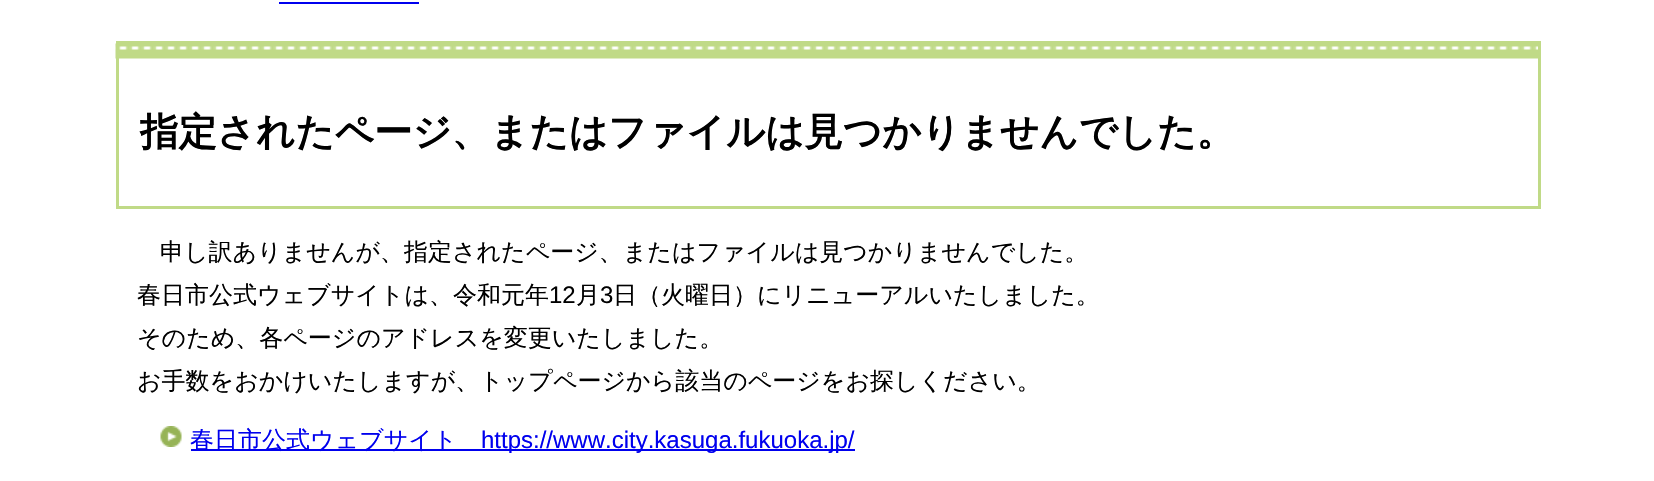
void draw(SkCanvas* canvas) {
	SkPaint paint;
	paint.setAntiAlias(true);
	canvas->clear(0xffffffff);
	paint.setColor(0xff0000ee);
	canvas->drawRect(SkRect::MakeXYWH(279, 2, 140, 2), paint);
	canvas->drawImageRect(SkImages::DeferredFromEncodedData(SkData::MakeFromFileName("img1.png")), SkRect::MakeXYWH(115, 43, 1423, 16), SkSamplingOptions());
	paint.setStroke(true);
	paint.setStrokeWidth(3);
	paint.setColor(0xffc0da87);
	canvas->drawRect(SkRect::MakeXYWH(117.5, 42.5, 1422, 165), paint);
	SkFont f1(fontMgr->matchFamilyStyle("WenQuanYi Zen Hei", SkFontStyle::Bold()), 38.4);
	f1.setSubpixel(true);
	paint.setStroke(false);
	paint.setColor(0xff000000);
	canvas->drawString("指定されたページ、またはファイルは見つかりませんでした。", 140, 145, f1, paint);
	SkFont f2(fontMgr->matchFamilyStyle("WenQuanYi Zen Hei", SkFontStyle(500, SkFontStyle::kNormal_Width, SkFontStyle::kUpright_Slant)), 24);
	f2.setSubpixel(true);
	canvas->drawString("申し訳ありませんが、指定されたページ、またはファイルは見つかりませんでした。", 160, 260, f2, paint);
	canvas->drawString("春日市公式ウェブサイトは、令和元年", 137, 303, f2, paint);
	SkFont f3(fontMgr->matchFamilyStyle("Liberation Sans", SkFontStyle::Normal()), 24);
	f3.setSubpixel(true);
	canvas->drawString("12", 549, 303, f3, paint);
	canvas->drawString("月", 576, 303, f2, paint);
	canvas->drawString("3", 600, 303, f3, paint);
	canvas->drawString("日（火曜日）にリニューアルいたしました。", 613, 303, f2, paint);
	canvas->drawString("そのため、各ページのアドレスを変更いたしました。", 137, 346, f2, paint);
	canvas->drawString("お手数をおかけいたしますが、トップページから該当のページをお探しください。", 137, 389, f2, paint);
	canvas->drawImageRect(SkImages::DeferredFromEncodedData(SkData::MakeFromFileName("img2.png")), SkRect::MakeXYWH(160, 426, 22, 21), SkSamplingOptions());
	paint.setColor(0xff0000ee);
	canvas->drawRect(SkRect::MakeXYWH(191, 449, 664, 2), paint);
	canvas->drawString("春日市公式ウェブサイト", 190, 448, f2, paint);
	canvas->drawString("https://www.city.kasuga.fukuoka.jp/", 481, 448, f3, paint);
}
